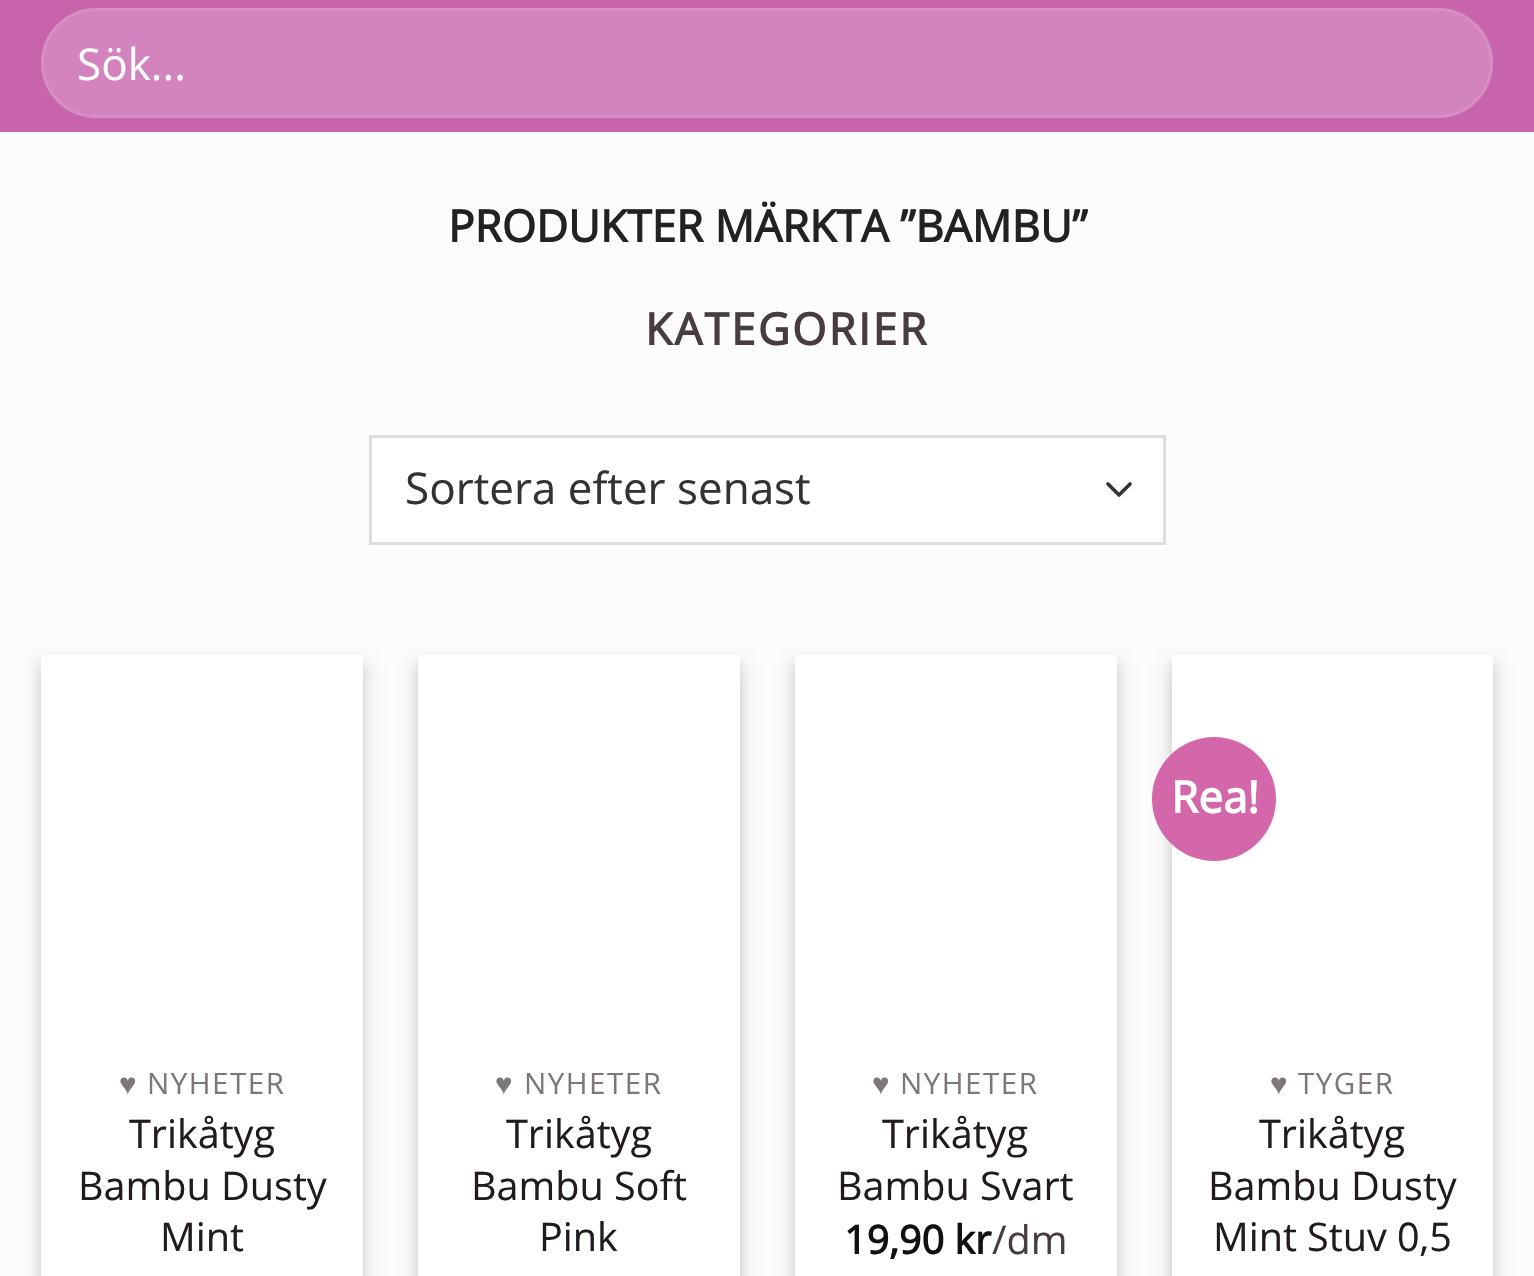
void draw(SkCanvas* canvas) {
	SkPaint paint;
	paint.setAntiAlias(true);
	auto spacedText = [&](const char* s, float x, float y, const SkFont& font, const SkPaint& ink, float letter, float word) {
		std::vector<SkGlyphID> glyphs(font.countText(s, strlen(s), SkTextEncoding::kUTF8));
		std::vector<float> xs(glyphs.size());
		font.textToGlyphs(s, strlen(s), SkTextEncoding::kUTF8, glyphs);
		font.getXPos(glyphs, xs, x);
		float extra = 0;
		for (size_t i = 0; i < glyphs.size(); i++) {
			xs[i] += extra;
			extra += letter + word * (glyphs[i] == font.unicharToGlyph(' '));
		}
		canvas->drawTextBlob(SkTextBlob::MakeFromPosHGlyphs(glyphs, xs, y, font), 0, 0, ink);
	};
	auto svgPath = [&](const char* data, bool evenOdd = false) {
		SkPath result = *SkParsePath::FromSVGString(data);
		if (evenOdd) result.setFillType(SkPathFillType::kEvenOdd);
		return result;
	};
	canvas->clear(0xfffcfcfc);
	paint.setColor(0xffc864ac);
	canvas->drawRect(SkRect::MakeXYWH(0, 0, 1534, 132), paint);
	paint.setColor(0xffd383bd);
	canvas->drawRoundRect(SkRect::MakeXYWH(41, 8, 1452, 110), 55, 55, paint);
	paint.setStroke(true);
	paint.setStrokeWidth(3);
	paint.setColor(0x17ffffff);
	canvas->drawRoundRect(SkRect::MakeXYWH(42.5, 9.5, 1449, 107), 53.5, 53.5, paint);
	SkFont f1(fontMgr->matchFamilyStyle("Open Sans", SkFontStyle::Normal()), 44);
	f1.setSubpixel(true);
	paint.setStroke(false);
	paint.setColor(0xffffffff);
	canvas->drawString("Sök...", 77, 80, f1, paint);
	SkFont f2(fontMgr->matchFamilyStyle("Open Sans", SkFontStyle::Bold()), 44);
	f2.setSubpixel(true);
	paint.setColor(0xff222222);
	canvas->drawString("PRODUKTER MÄRKTA ”BAMBU”", 448, 242, f2, paint);
	paint.setColor(0xff473c41);
	spacedText("KATEGORIER", 645, 345, f2, paint, 2.25, 0);
	paint.setColor(0xffffffff);
	canvas->drawRect(SkRect::MakeXYWH(372, 438, 791, 104), paint);
	paint.setStroke(true);
	paint.setStrokeWidth(3.7);
	paint.setStrokeCap(SkPaint::kRound_Cap);
	paint.setStrokeJoin(SkPaint::kRound_Join);
	paint.setColor(0xff333333);
	canvas->drawPath(svgPath("M1108 484L1119 495L1130 484"), paint);
	paint.setStrokeWidth(3);
	paint.setStrokeCap(SkPaint::kButt_Cap);
	paint.setStrokeJoin(SkPaint::kMiter_Join);
	paint.setColor(0xffdddddd);
	canvas->drawRect(SkRect::MakeXYWH(370.5, 436.5, 794, 107), paint);
	paint.setStroke(false);
	paint.setColor(0xff333333);
	canvas->drawString("Sortera efter senast", 405, 504, f1, paint);
	paint.setColor(0x3b000000);
	paint.setMaskFilter(SkMaskFilter::MakeBlur(kNormal_SkBlurStyle, 8));
	canvas->drawRect(SkRect::MakeXYWH(41, 663, 322, 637), paint);
	paint.setMaskFilter(nullptr);
	paint.setColor(0xffffffff);
	canvas->drawRect(SkRect::MakeXYWH(41, 655, 322, 621), paint);
	SkFont f3(fontMgr->matchFamilyStyle("Liberation Sans", SkFontStyle::Normal()), 29.5);
	f3.setSubpixel(true);
	paint.setColor(0xff7e777a);
	spacedText("♥", 119, 1094, f3, paint, 1.5, 0);
	SkFont f4(fontMgr->matchFamilyStyle("Open Sans", SkFontStyle::Normal()), 29.5);
	f4.setSubpixel(true);
	spacedText("NYHETER", 147, 1094, f4, paint, 1.5, 0);
	SkFont f5(fontMgr->matchFamilyStyle("Open Sans", SkFontStyle::Normal()), 39.5);
	f5.setSubpixel(true);
	paint.setColor(0xff211b21);
	canvas->drawString("Trikåtyg", 129, 1148, f5, paint);
	canvas->drawString("Bambu Dusty", 78, 1200, f5, paint);
	canvas->drawString("Mint", 160, 1251, f5, paint);
	paint.setColor(0x3b000000);
	paint.setMaskFilter(SkMaskFilter::MakeBlur(kNormal_SkBlurStyle, 8));
	canvas->drawRect(SkRect::MakeXYWH(418, 663, 322, 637), paint);
	paint.setMaskFilter(nullptr);
	paint.setColor(0xffffffff);
	canvas->drawRect(SkRect::MakeXYWH(418, 655, 322, 621), paint);
	paint.setColor(0xff7e777a);
	spacedText("♥", 495, 1094, f3, paint, 1.5, 0);
	spacedText("NYHETER", 524, 1094, f4, paint, 1.5, 0);
	paint.setColor(0xff211b21);
	canvas->drawString("Trikåtyg", 506, 1148, f5, paint);
	canvas->drawString("Bambu Soft", 471, 1200, f5, paint);
	canvas->drawString("Pink", 539, 1251, f5, paint);
	paint.setColor(0x3b000000);
	paint.setMaskFilter(SkMaskFilter::MakeBlur(kNormal_SkBlurStyle, 8));
	canvas->drawRect(SkRect::MakeXYWH(795, 663, 322, 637), paint);
	paint.setMaskFilter(nullptr);
	paint.setColor(0xffffffff);
	canvas->drawRect(SkRect::MakeXYWH(795, 655, 322, 621), paint);
	paint.setColor(0xff7e777a);
	spacedText("♥", 872, 1094, f3, paint, 1.5, 0);
	spacedText("NYHETER", 900, 1094, f4, paint, 1.5, 0);
	paint.setColor(0xff211b21);
	canvas->drawString("Trikåtyg", 882, 1148, f5, paint);
	canvas->drawString("Bambu Svart", 837, 1200, f5, paint);
	SkFont f6(fontMgr->matchFamilyStyle("Open Sans", SkFontStyle::Bold()), 39.5);
	f6.setSubpixel(true);
	paint.setColor(0xff111111);
	canvas->drawString("19,90 kr", 844, 1254, f6, paint);
	paint.setColor(0xff473c41);
	canvas->drawString("/dm", 992, 1254, f5, paint);
	paint.setColor(0x3b000000);
	paint.setMaskFilter(SkMaskFilter::MakeBlur(kNormal_SkBlurStyle, 8));
	canvas->drawRect(SkRect::MakeXYWH(1172, 663, 321, 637), paint);
	paint.setMaskFilter(nullptr);
	paint.setColor(0xffffffff);
	canvas->drawRect(SkRect::MakeXYWH(1172, 655, 321, 621), paint);
	paint.setColor(0xffd467aa);
	canvas->drawCircle(1214, 799, 62, paint);
	paint.setColor(0xffffffff);
	canvas->drawString("Rea!", 1171, 813, f2, paint);
	paint.setColor(0xff7e777a);
	spacedText("♥", 1270, 1094, f3, paint, 1.5, 0);
	spacedText("TYGER", 1298, 1094, f4, paint, 1.5, 0);
	paint.setColor(0xff211b21);
	canvas->drawString("Trikåtyg", 1259, 1148, f5, paint);
	canvas->drawString("Bambu Dusty", 1208, 1200, f5, paint);
	canvas->drawString("Mint Stuv 0,5", 1213, 1251, f5, paint);
}
